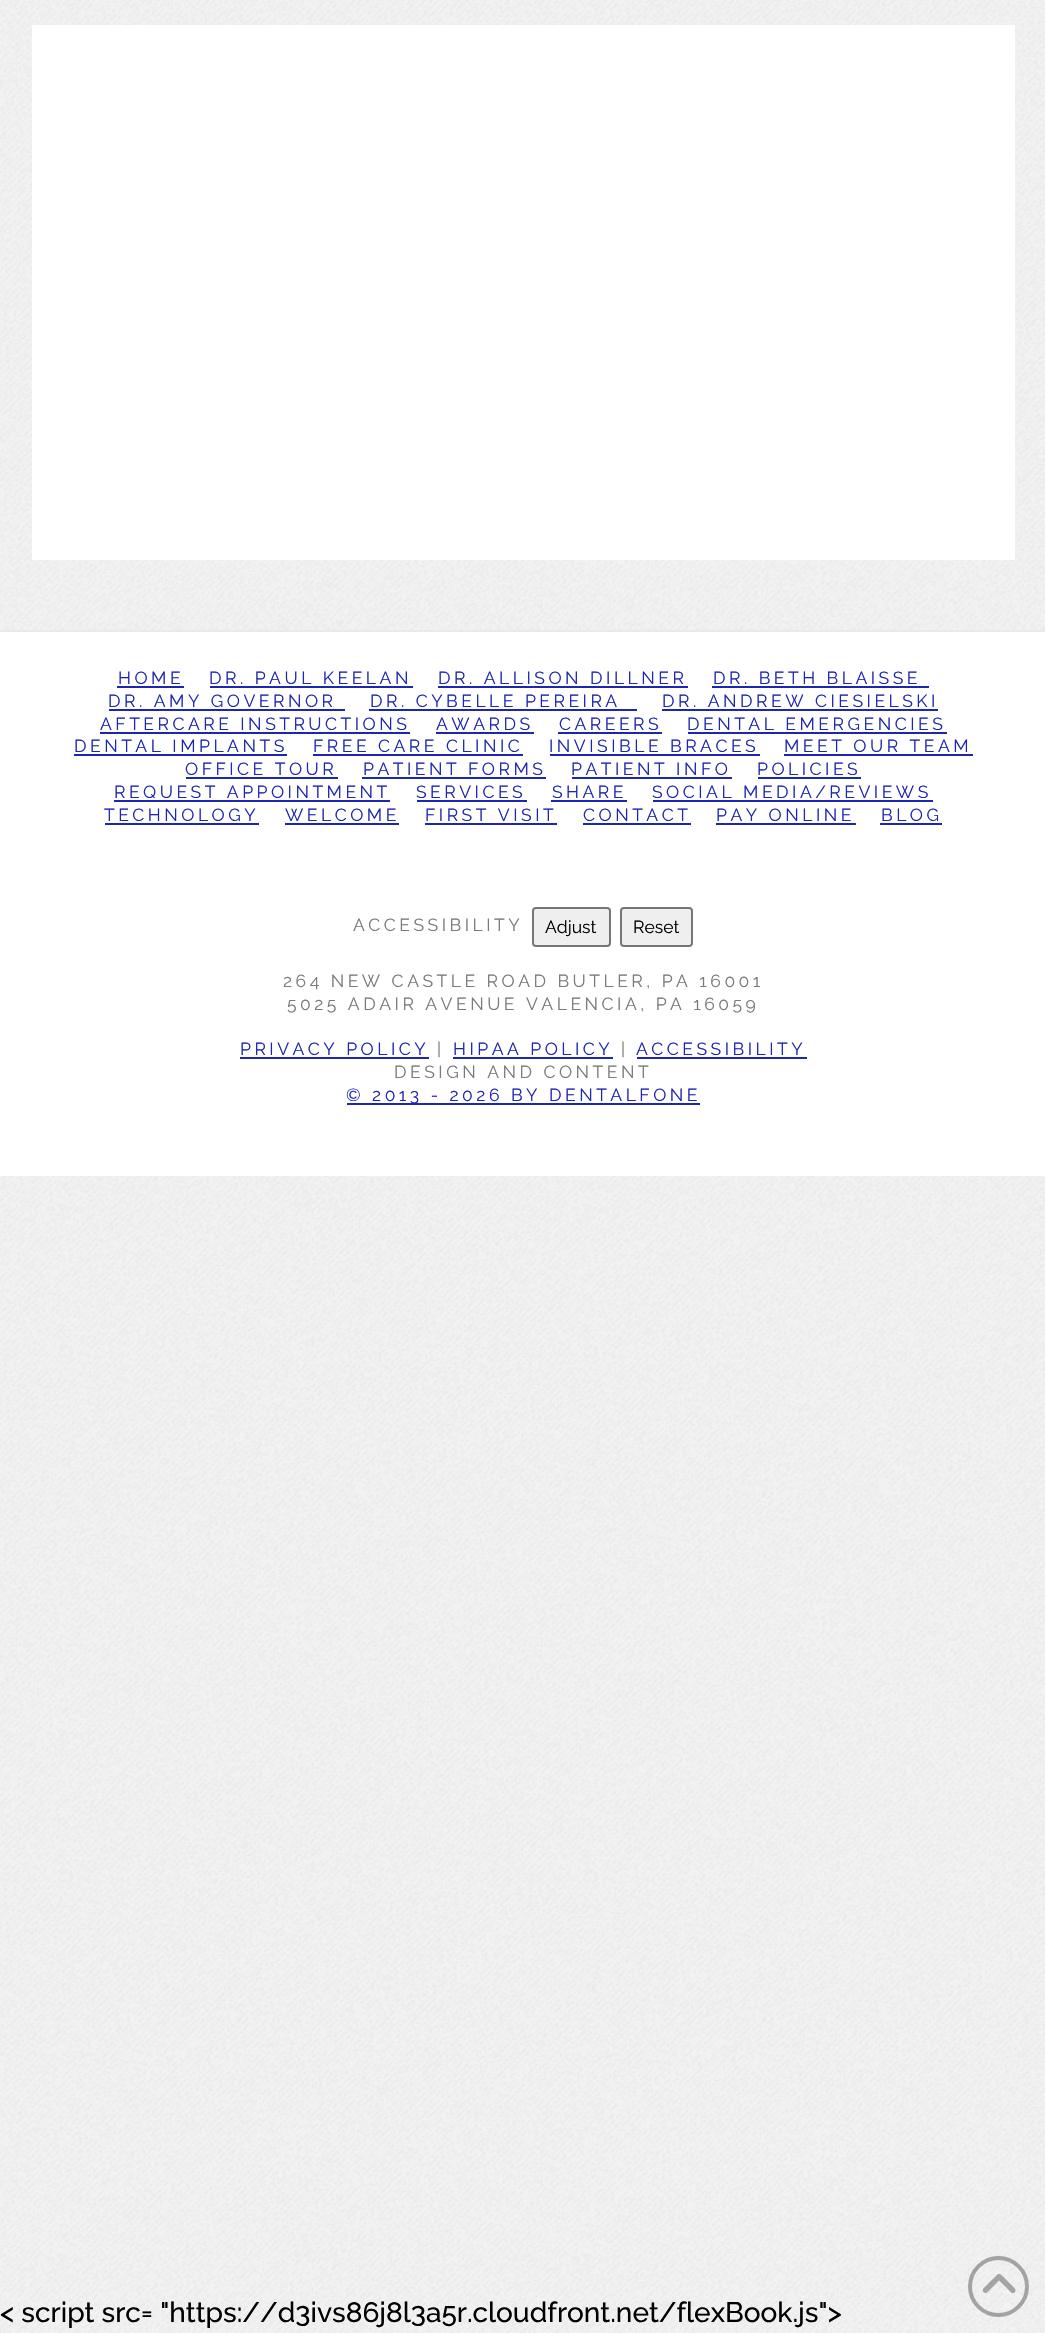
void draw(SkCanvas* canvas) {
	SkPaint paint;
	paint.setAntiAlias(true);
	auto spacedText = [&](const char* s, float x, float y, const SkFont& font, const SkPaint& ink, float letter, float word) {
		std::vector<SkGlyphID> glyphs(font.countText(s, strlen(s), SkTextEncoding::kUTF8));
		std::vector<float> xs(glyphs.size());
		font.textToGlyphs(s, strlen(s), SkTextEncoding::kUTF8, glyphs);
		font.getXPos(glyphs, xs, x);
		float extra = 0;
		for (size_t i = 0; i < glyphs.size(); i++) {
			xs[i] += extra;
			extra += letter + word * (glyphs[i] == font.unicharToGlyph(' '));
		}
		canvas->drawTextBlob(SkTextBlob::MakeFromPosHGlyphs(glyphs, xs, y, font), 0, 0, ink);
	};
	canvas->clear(0xfff2f2f2);
	canvas->drawImageRect(SkImages::DeferredFromEncodedData(SkData::MakeFromFileName("img1.png")), SkRect::MakeXYWH(0, 0, 1045, 2333), SkSamplingOptions());
	paint.setColor(0xffffffff);
	canvas->drawRect(SkRect::MakeXYWH(32, 25, 983, 535), paint);
	canvas->drawRect(SkRect::MakeXYWH(0, 632, 1045, 544), paint);
	paint.setColor(0xffe9e9e9);
	canvas->drawRect(SkRect::MakeXYWH(0, 630, 1045, 2), paint);
	SkFont f1(fontMgr->matchFamilyStyle("Raleway", SkFontStyle::Normal()), 17.5);
	f1.setSubpixel(true);
	paint.setColor(0xff1d26b3);
	spacedText("HOME", 118, 684, f1, paint, 3.5, 0);
	canvas->drawRect(SkRect::MakeXYWH(117, 686, 67, 2), paint);
	spacedText("DR. PAUL KEELAN", 209, 684, f1, paint, 3.5, 0);
	canvas->drawRect(SkRect::MakeXYWH(210, 686, 203, 2), paint);
	spacedText("DR. ALLISON DILLNER", 438, 684, f1, paint, 3.5, 0);
	canvas->drawRect(SkRect::MakeXYWH(438, 686, 250, 2), paint);
	spacedText("DR. BETH BLAISSE", 713, 684, f1, paint, 3.5, 0);
	canvas->drawRect(SkRect::MakeXYWH(712, 686, 217, 2), paint);
	spacedText("DR. AMY GOVERNOR", 108, 707, f1, paint, 3.5, 0);
	canvas->drawRect(SkRect::MakeXYWH(109, 709, 236, 2), paint);
	spacedText("DR. CYBELLE PEREIRA", 370, 707, f1, paint, 3.5, 0);
	canvas->drawRect(SkRect::MakeXYWH(369, 709, 268, 2), paint);
	spacedText("DR. ANDREW CIESIELSKI", 662, 707, f1, paint, 3.5, 0);
	canvas->drawRect(SkRect::MakeXYWH(662, 709, 276, 2), paint);
	spacedText("AFTERCARE INSTRUCTIONS", 100, 730, f1, paint, 3.5, 0);
	canvas->drawRect(SkRect::MakeXYWH(100, 732, 310, 2), paint);
	spacedText("AWARDS", 436, 730, f1, paint, 3.5, 0);
	canvas->drawRect(SkRect::MakeXYWH(436, 732, 98, 2), paint);
	spacedText("CAREERS", 559, 730, f1, paint, 3.5, 0);
	canvas->drawRect(SkRect::MakeXYWH(558, 732, 104, 2), paint);
	spacedText("DENTAL EMERGENCIES", 687, 730, f1, paint, 3.5, 0);
	canvas->drawRect(SkRect::MakeXYWH(688, 732, 259, 2), paint);
	spacedText("DENTAL IMPLANTS", 74, 752, f1, paint, 3.5, 0);
	canvas->drawRect(SkRect::MakeXYWH(74, 754, 213, 2), paint);
	spacedText("FREE CARE CLINIC", 313, 752, f1, paint, 3.5, 0);
	canvas->drawRect(SkRect::MakeXYWH(313, 754, 210, 2), paint);
	spacedText("INVISIBLE BRACES", 549, 752, f1, paint, 3.5, 0);
	canvas->drawRect(SkRect::MakeXYWH(550, 754, 210, 2), paint);
	spacedText("MEET OUR TEAM", 784, 752, f1, paint, 3.5, 0);
	canvas->drawRect(SkRect::MakeXYWH(784, 754, 189, 2), paint);
	spacedText("OFFICE TOUR", 185, 775, f1, paint, 3.5, 0);
	canvas->drawRect(SkRect::MakeXYWH(186, 777, 152, 2), paint);
	spacedText("PATIENT FORMS", 363, 775, f1, paint, 3.5, 0);
	canvas->drawRect(SkRect::MakeXYWH(362, 777, 184, 2), paint);
	spacedText("PATIENT INFO", 571, 775, f1, paint, 3.5, 0);
	canvas->drawRect(SkRect::MakeXYWH(572, 777, 160, 2), paint);
	spacedText("POLICIES", 757, 775, f1, paint, 3.5, 0);
	canvas->drawRect(SkRect::MakeXYWH(758, 777, 103, 2), paint);
	spacedText("REQUEST APPOINTMENT", 114, 798, f1, paint, 3.5, 0);
	canvas->drawRect(SkRect::MakeXYWH(114, 800, 276, 2), paint);
	spacedText("SERVICES", 416, 798, f1, paint, 3.5, 0);
	canvas->drawRect(SkRect::MakeXYWH(417, 800, 110, 2), paint);
	spacedText("SHARE", 552, 798, f1, paint, 3.5, 0);
	canvas->drawRect(SkRect::MakeXYWH(551, 800, 76, 2), paint);
	spacedText("SOCIAL MEDIA/REVIEWS", 652, 798, f1, paint, 3.5, 0);
	canvas->drawRect(SkRect::MakeXYWH(653, 800, 280, 2), paint);
	spacedText("TECHNOLOGY", 104, 821, f1, paint, 3.5, 0);
	canvas->drawRect(SkRect::MakeXYWH(105, 823, 154, 2), paint);
	spacedText("WELCOME", 285, 821, f1, paint, 3.5, 0);
	canvas->drawRect(SkRect::MakeXYWH(285, 823, 114, 2), paint);
	spacedText("FIRST VISIT", 425, 821, f1, paint, 3.5, 0);
	canvas->drawRect(SkRect::MakeXYWH(425, 823, 132, 2), paint);
	spacedText("CONTACT", 583, 821, f1, paint, 3.5, 0);
	canvas->drawRect(SkRect::MakeXYWH(583, 823, 108, 2), paint);
	spacedText("PAY ONLINE", 716, 821, f1, paint, 3.5, 0);
	canvas->drawRect(SkRect::MakeXYWH(716, 823, 140, 2), paint);
	spacedText("BLOG", 881, 821, f1, paint, 3.5, 0);
	canvas->drawRect(SkRect::MakeXYWH(880, 823, 62, 2), paint);
	paint.setColor(0xff7a7a7a);
	spacedText("ACCESSIBILITY", 353, 931, f1, paint, 3.5, 0);
	paint.setColor(0xffefefef);
	canvas->drawRoundRect(SkRect::MakeXYWH(533, 908, 77, 38), 3, 3, paint);
	paint.setStroke(true);
	paint.setStrokeWidth(2);
	paint.setColor(0xff767676);
	canvas->drawRoundRect(SkRect::MakeXYWH(533, 908, 77, 38), 3, 3, paint);
	paint.setStroke(false);
	paint.setColor(0xff000000);
	canvas->drawString("Adjust", 545, 933, f1, paint);
	paint.setColor(0xffefefef);
	canvas->drawRoundRect(SkRect::MakeXYWH(621, 908, 71, 38), 3, 3, paint);
	paint.setStroke(true);
	paint.setColor(0xff767676);
	canvas->drawRoundRect(SkRect::MakeXYWH(621, 908, 71, 38), 3, 3, paint);
	paint.setStroke(false);
	paint.setColor(0xff000000);
	canvas->drawString("Reset", 633, 933, f1, paint);
	paint.setColor(0xff7a7a7a);
	spacedText("264 NEW CASTLE ROAD BUTLER, PA 16001", 283, 987, f1, paint, 3.5, 0);
	spacedText("5025 ADAIR AVENUE VALENCIA, PA 16059", 287, 1010, f1, paint, 3.5, 0);
	paint.setColor(0xff1d26b3);
	spacedText("PRIVACY POLICY", 240, 1055, f1, paint, 3.5, 0);
	canvas->drawRect(SkRect::MakeXYWH(240, 1057, 189, 2), paint);
	paint.setColor(0xff7a7a7a);
	spacedText("|", 437, 1055, f1, paint, 3.5, 0);
	paint.setColor(0xff1d26b3);
	spacedText("HIPAA POLICY", 453, 1055, f1, paint, 3.5, 0);
	canvas->drawRect(SkRect::MakeXYWH(453, 1057, 160, 2), paint);
	paint.setColor(0xff7a7a7a);
	spacedText("|", 621, 1055, f1, paint, 3.5, 0);
	paint.setColor(0xff1d26b3);
	spacedText("ACCESSIBILITY", 636, 1055, f1, paint, 3.5, 0);
	canvas->drawRect(SkRect::MakeXYWH(637, 1057, 170, 2), paint);
	paint.setColor(0xff7a7a7a);
	spacedText("DESIGN AND CONTENT", 394, 1078, f1, paint, 3.5, 0);
	paint.setColor(0xff1d26b3);
	canvas->drawRect(SkRect::MakeXYWH(347, 1103, 353, 2), paint);
	spacedText("© 2013 - 2026 BY DENTALFONE", 346, 1101, f1, paint, 3.5, 0);
	paint.setStroke(true);
	paint.setStrokeWidth(4);
	paint.setColor(0x61272727);
	canvas->drawCircle(998.5, 2286.5, 28.5, paint);
	canvas->drawImageRect(SkImages::DeferredFromEncodedData(SkData::MakeFromFileName("img2.png")), SkRect::MakeXYWH(982, 2274, 34, 19), SkSamplingOptions());
	SkFont f2(fontMgr->matchFamilyStyle("Raleway", SkFontStyle(500, SkFontStyle::kNormal_Width, SkFontStyle::kUpright_Slant)), 28);
	f2.setSubpixel(true);
	paint.setStroke(false);
	paint.setColor(0xff000000);
	canvas->drawString("< script src= \"https://d3ivs86j8l3a5r.cloudfront.net/flexBook.js\">", 0, 2322, f2, paint);
}
